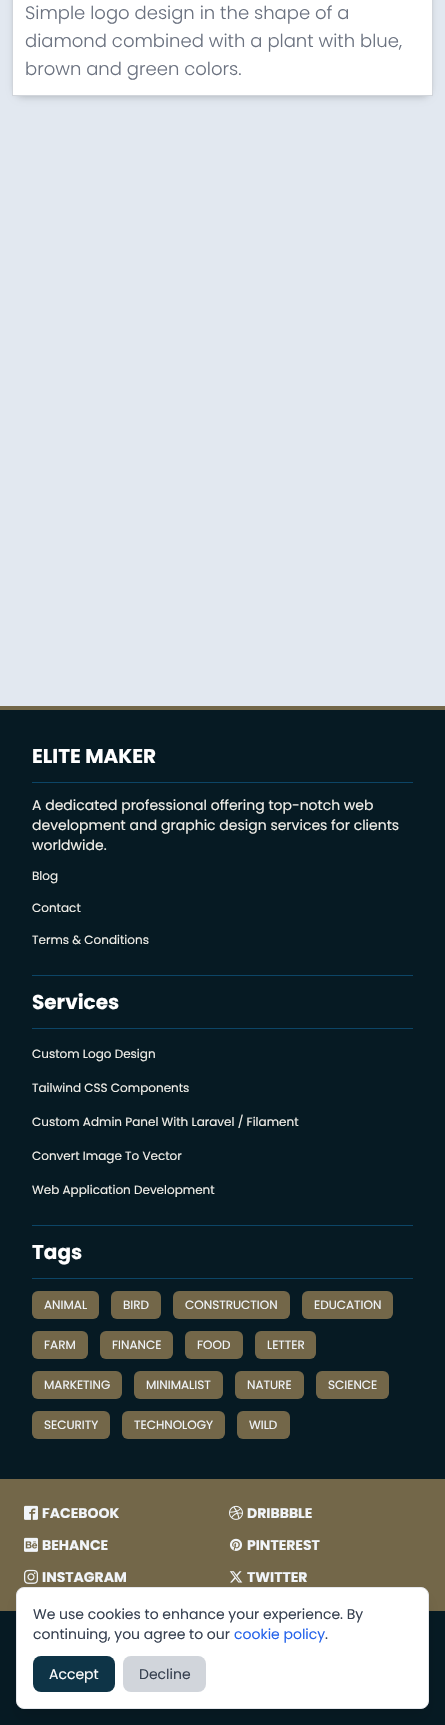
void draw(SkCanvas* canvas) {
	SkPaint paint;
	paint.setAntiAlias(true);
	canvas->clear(0xffe2e8f0);
	paint.setColor(0x1a000000);
	paint.setMaskFilter(SkMaskFilter::MakeBlur(kNormal_SkBlurStyle, 2));
	canvas->drawRoundRect(SkRect::MakeXYWH(14, -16, 417, 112), 10, 10, paint);
	paint.setMaskFilter(nullptr);
	paint.setMaskFilter(SkMaskFilter::MakeBlur(kNormal_SkBlurStyle, 3));
	canvas->drawRoundRect(SkRect::MakeXYWH(13, -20, 419, 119), 11, 11, paint);
	paint.setMaskFilter(nullptr);
	paint.setColor(0xffffffff);
	canvas->drawRect(SkRect::MakeXYWH(12.5, -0.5, 420, 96), paint);
	paint.setStroke(true);
	paint.setStrokeWidth(1);
	paint.setColor(0xffd1d5db);
	canvas->drawRect(SkRect::MakeXYWH(12.5, -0.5, 420, 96), paint);
	SkFont f1(fontMgr->matchFamilyStyle("Poppins", SkFontStyle(300, SkFontStyle::kNormal_Width, SkFontStyle::kUpright_Slant)), 18);
	f1.setSubpixel(true);
	paint.setStroke(false);
	paint.setColor(0xff6b7280);
	canvas->drawString("Simple logo design in the shape of a", 25, 19, f1, paint);
	canvas->drawString("diamond combined with a plant with blue,", 25, 47, f1, paint);
	canvas->drawString("brown and green colors.", 25, 75, f1, paint);
	paint.setColor(0xff061a23);
	canvas->drawRect(SkRect::MakeXYWH(0, 710, 445, 1015), paint);
	paint.setColor(0xff736749);
	canvas->drawRect(SkRect::MakeXYWH(0, 706, 445, 4), paint);
	SkFont f2(fontMgr->matchFamilyStyle("Poppins", SkFontStyle::Bold()), 20);
	f2.setSubpixel(true);
	paint.setColor(0xffffffff);
	canvas->drawString("ELITE MAKER", 32, 763, f2, paint);
	paint.setColor(0xff0c4566);
	canvas->drawRect(SkRect::MakeXYWH(32, 782, 381, 1), paint);
	SkFont f3(fontMgr->matchFamilyStyle("Poppins", SkFontStyle::Normal()), 14);
	f3.setSubpixel(true);
	paint.setColor(0xfff1efe9);
	canvas->drawString("A dedicated professional offering top-notch web", 32, 810, f3, paint);
	canvas->drawString("development and graphic design services for clients", 32, 830, f3, paint);
	canvas->drawString("worldwide.", 32, 850, f3, paint);
	SkFont f4(fontMgr->matchFamilyStyle("Poppins", SkFontStyle::Normal()), 12);
	f4.setSubpixel(true);
	canvas->drawString("Blog", 32, 880, f4, paint);
	canvas->drawString("Contact", 32, 912, f4, paint);
	canvas->drawString("Terms & Conditions", 32, 944, f4, paint);
	paint.setColor(0xff0c4566);
	canvas->drawRect(SkRect::MakeXYWH(32, 975, 381, 1), paint);
	paint.setColor(0xffffffff);
	canvas->drawString("Services", 32, 1009, f2, paint);
	paint.setColor(0xff0c4566);
	canvas->drawRect(SkRect::MakeXYWH(32, 1028, 381, 1), paint);
	paint.setColor(0xfff1efe9);
	canvas->drawString("Custom Logo Design", 32, 1058, f4, paint);
	canvas->drawString("Tailwind CSS Components", 32, 1092, f4, paint);
	canvas->drawString("Custom Admin Panel With Laravel / Filament", 32, 1126, f4, paint);
	canvas->drawString("Convert Image To Vector", 32, 1160, f4, paint);
	canvas->drawString("Web Application Development", 32, 1194, f4, paint);
	paint.setColor(0xff0c4566);
	canvas->drawRect(SkRect::MakeXYWH(32, 1225, 381, 1), paint);
	paint.setColor(0xffffffff);
	canvas->drawString("Tags", 32, 1259, f2, paint);
	paint.setColor(0xff0c4566);
	canvas->drawRect(SkRect::MakeXYWH(32, 1278, 381, 1), paint);
	paint.setColor(0xff736749);
	canvas->drawRoundRect(SkRect::MakeXYWH(32, 1291, 67, 28), 6, 6, paint);
	paint.setColor(0xfff1f5f9);
	canvas->drawString("ANIMAL", 44, 1309, f4, paint);
	paint.setColor(0xff736749);
	canvas->drawRoundRect(SkRect::MakeXYWH(111, 1291, 50, 28), 6, 6, paint);
	paint.setColor(0xfff1f5f9);
	canvas->drawString("BIRD", 123, 1309, f4, paint);
	paint.setColor(0xff736749);
	canvas->drawRoundRect(SkRect::MakeXYWH(173, 1291, 117, 28), 6, 6, paint);
	paint.setColor(0xfff1f5f9);
	canvas->drawString("CONSTRUCTION", 185, 1309, f4, paint);
	paint.setColor(0xff736749);
	canvas->drawRoundRect(SkRect::MakeXYWH(302, 1291, 91, 28), 6, 6, paint);
	paint.setColor(0xfff1f5f9);
	canvas->drawString("EDUCATION", 314, 1309, f4, paint);
	paint.setColor(0xff736749);
	canvas->drawRoundRect(SkRect::MakeXYWH(32, 1331, 56, 28), 6, 6, paint);
	paint.setColor(0xfff1f5f9);
	canvas->drawString("FARM", 44, 1349, f4, paint);
	paint.setColor(0xff736749);
	canvas->drawRoundRect(SkRect::MakeXYWH(100, 1331, 73, 28), 6, 6, paint);
	paint.setColor(0xfff1f5f9);
	canvas->drawString("FINANCE", 112, 1349, f4, paint);
	paint.setColor(0xff736749);
	canvas->drawRoundRect(SkRect::MakeXYWH(185, 1331, 58, 28), 6, 6, paint);
	paint.setColor(0xfff1f5f9);
	canvas->drawString("FOOD", 197, 1349, f4, paint);
	paint.setColor(0xff736749);
	canvas->drawRoundRect(SkRect::MakeXYWH(255, 1331, 61, 28), 6, 6, paint);
	paint.setColor(0xfff1f5f9);
	canvas->drawString("LETTER", 267, 1349, f4, paint);
	paint.setColor(0xff736749);
	canvas->drawRoundRect(SkRect::MakeXYWH(32, 1371, 90, 28), 6, 6, paint);
	paint.setColor(0xfff1f5f9);
	canvas->drawString("MARKETING", 44, 1389, f4, paint);
	paint.setColor(0xff736749);
	canvas->drawRoundRect(SkRect::MakeXYWH(134, 1371, 89, 28), 6, 6, paint);
	paint.setColor(0xfff1f5f9);
	canvas->drawString("MINIMALIST", 146, 1389, f4, paint);
	paint.setColor(0xff736749);
	canvas->drawRoundRect(SkRect::MakeXYWH(235, 1371, 69, 28), 6, 6, paint);
	paint.setColor(0xfff1f5f9);
	canvas->drawString("NATURE", 247, 1389, f4, paint);
	paint.setColor(0xff736749);
	canvas->drawRoundRect(SkRect::MakeXYWH(316, 1371, 73, 28), 6, 6, paint);
	paint.setColor(0xfff1f5f9);
	canvas->drawString("SCIENCE", 328, 1389, f4, paint);
	paint.setColor(0xff736749);
	canvas->drawRoundRect(SkRect::MakeXYWH(32, 1411, 78, 28), 6, 6, paint);
	paint.setColor(0xfff1f5f9);
	canvas->drawString("SECURITY", 44, 1429, f4, paint);
	paint.setColor(0xff736749);
	canvas->drawRoundRect(SkRect::MakeXYWH(122, 1411, 103, 28), 6, 6, paint);
	paint.setColor(0xfff1f5f9);
	canvas->drawString("TECHNOLOGY", 134, 1429, f4, paint);
	paint.setColor(0xff736749);
	canvas->drawRoundRect(SkRect::MakeXYWH(237, 1411, 53, 28), 6, 6, paint);
	paint.setColor(0xfff1f5f9);
	canvas->drawString("WILD", 249, 1429, f4, paint);
	paint.setColor(0xff736749);
	canvas->drawRect(SkRect::MakeXYWH(0, 1479, 445, 132), paint);
	canvas->drawImageRect(SkImages::DeferredFromEncodedData(SkData::MakeFromFileName("img1.png")), SkRect::MakeXYWH(24, 1505, 14, 15), SkSamplingOptions());
	SkFont f5(fontMgr->matchFamilyStyle("Poppins", SkFontStyle::Bold()), 14);
	f5.setSubpixel(true);
	paint.setColor(0xfff1f5f9);
	canvas->drawString("FACEBOOK", 42, 1518, f5, paint);
	canvas->drawImageRect(SkImages::DeferredFromEncodedData(SkData::MakeFromFileName("img2.png")), SkRect::MakeXYWH(229, 1505, 14, 15), SkSamplingOptions());
	canvas->drawString("DRIBBBLE", 247, 1518, f5, paint);
	canvas->drawImageRect(SkImages::DeferredFromEncodedData(SkData::MakeFromFileName("img3.png")), SkRect::MakeXYWH(24, 1537, 14, 15), SkSamplingOptions());
	canvas->drawString("BEHANCE", 42, 1550, f5, paint);
	canvas->drawImageRect(SkImages::DeferredFromEncodedData(SkData::MakeFromFileName("img4.png")), SkRect::MakeXYWH(229, 1538, 14, 13), SkSamplingOptions());
	canvas->drawString("PINTEREST", 247, 1550, f5, paint);
	canvas->drawImageRect(SkImages::DeferredFromEncodedData(SkData::MakeFromFileName("img5.png")), SkRect::MakeXYWH(24, 1569, 14, 15), SkSamplingOptions());
	canvas->drawString("INSTAGRAM", 42, 1582, f5, paint);
	canvas->drawImageRect(SkImages::DeferredFromEncodedData(SkData::MakeFromFileName("img6.png")), SkRect::MakeXYWH(229, 1571, 14, 12), SkSamplingOptions());
	canvas->drawString("TWITTER", 247, 1582, f5, paint);
	paint.setColor(0x1a000000);
	paint.setMaskFilter(SkMaskFilter::MakeBlur(kNormal_SkBlurStyle, 7.5));
	canvas->drawRoundRect(SkRect::MakeXYWH(19, 1600, 407, 116), 5, 5, paint);
	paint.setMaskFilter(nullptr);
	paint.setColor(0xffffffff);
	canvas->drawRoundRect(SkRect::MakeXYWH(16.5, 1587.5, 412, 121), 7.5, 7.5, paint);
	paint.setStroke(true);
	paint.setColor(0xffe5e7eb);
	canvas->drawRoundRect(SkRect::MakeXYWH(16.5, 1587.5, 412, 121), 7.5, 7.5, paint);
	paint.setStroke(false);
	paint.setColor(0xff374151);
	canvas->drawString("We use cookies to enhance your experience. By", 33, 1619, f3, paint);
	canvas->drawString("continuing, you agree to our", 33, 1639, f3, paint);
	paint.setColor(0xff2563eb);
	canvas->drawString("cookie policy", 234, 1639, f3, paint);
	paint.setColor(0xff374151);
	canvas->drawString(".", 325, 1639, f3, paint);
	paint.setColor(0xff0e3447);
	canvas->drawRoundRect(SkRect::MakeXYWH(33, 1656, 82, 36), 8, 8, paint);
	paint.setColor(0xffffffff);
	canvas->drawString("Accept", 49, 1679, f3, paint);
	paint.setColor(0xffd1d5db);
	canvas->drawRoundRect(SkRect::MakeXYWH(123, 1656, 83, 36), 8, 8, paint);
	paint.setColor(0xff374151);
	canvas->drawString("Decline", 139, 1679, f3, paint);
}
